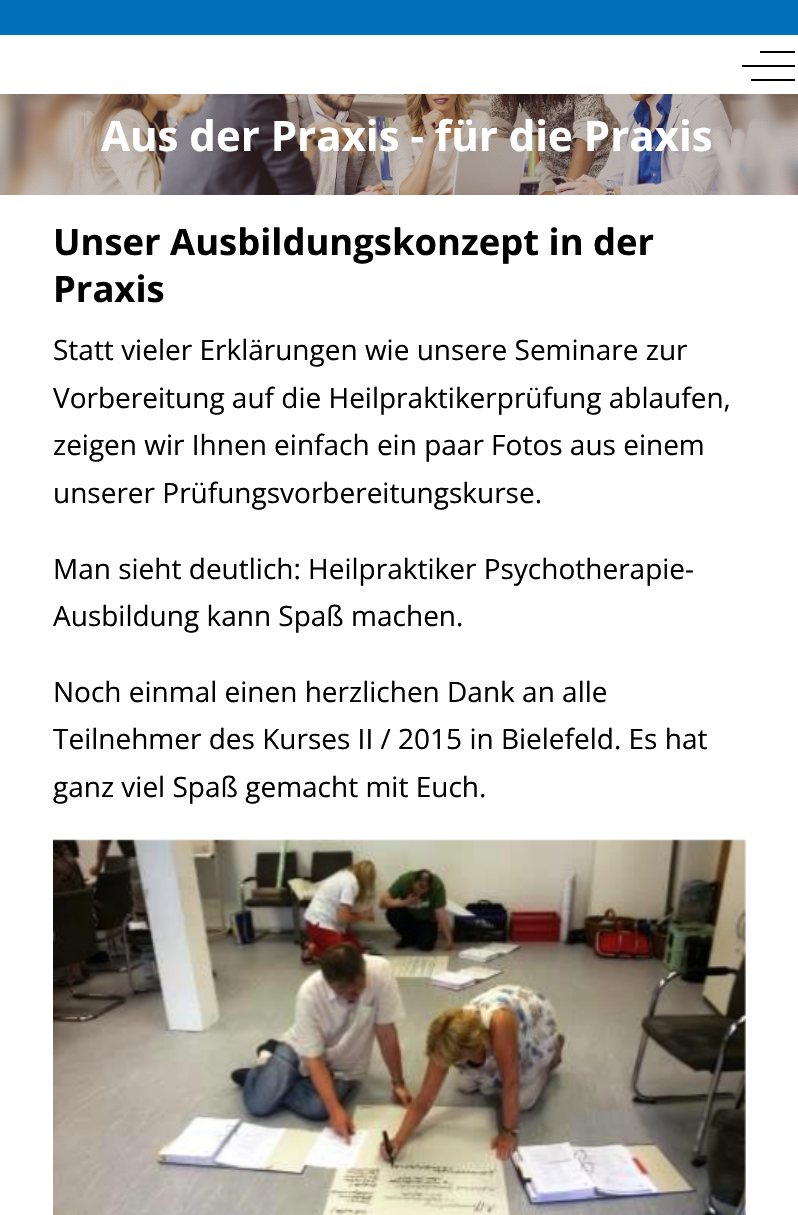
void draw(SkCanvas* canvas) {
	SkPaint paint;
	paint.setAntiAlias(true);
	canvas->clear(0xffffffff);
	paint.setColor(0xff0070ba);
	canvas->drawRect(SkRect::MakeXYWH(0, 0, 798, 35), paint);
	paint.setColor(0xff000000);
	canvas->drawRect(SkRect::MakeXYWH(742, 65, 53, 2), paint);
	canvas->drawRect(SkRect::MakeXYWH(760, 51, 35, 2), paint);
	canvas->drawRect(SkRect::MakeXYWH(751, 79, 44, 2), paint);
	canvas->drawImageRect(SkImages::DeferredFromEncodedData(SkData::MakeFromFileName("img1.png")), SkRect::MakeXYWH(0, 94, 798, 101), SkSamplingOptions());
	SkFont f1(fontMgr->matchFamilyStyle("Open Sans", SkFontStyle::Bold()), 42);
	f1.setSubpixel(true);
	paint.setColor(0xffffffff);
	canvas->drawString("Aus der Praxis - für die Praxis", 101, 151, f1, paint);
	SkFont f2(fontMgr->matchFamilyStyle("Open Sans", SkFontStyle::Bold()), 36.4);
	f2.setSubpixel(true);
	paint.setColor(0xff000000);
	canvas->drawString("Unser Ausbildungskonzept in der", 53, 255, f2, paint);
	canvas->drawString("Praxis", 53, 302, f2, paint);
	SkFont f3(fontMgr->matchFamilyStyle("Open Sans", SkFontStyle::Normal()), 28);
	f3.setSubpixel(true);
	canvas->drawString("Statt vieler Erklärungen wie unsere Seminare zur", 53, 360, f3, paint);
	canvas->drawString("Vorbereitung auf die Heilpraktikerprüfung ablaufen,", 53, 408, f3, paint);
	canvas->drawString("zeigen wir Ihnen einfach ein paar Fotos aus einem", 53, 455, f3, paint);
	canvas->drawString("unserer Prüfungsvorbereitungskurse.", 53, 503, f3, paint);
	canvas->drawString("Man sieht deutlich: Heilpraktiker Psychotherapie-", 53, 579, f3, paint);
	canvas->drawString("Ausbildung kann Spaß machen.", 53, 626, f3, paint);
	canvas->drawString("Noch einmal einen herzlichen Dank an alle", 53, 702, f3, paint);
	canvas->drawString("Teilnehmer des Kurses II / 2015 in Bielefeld. Es hat", 53, 749, f3, paint);
	canvas->drawString("ganz viel Spaß gemacht mit Euch.", 53, 797, f3, paint);
	canvas->drawImageRect(SkImages::DeferredFromEncodedData(SkData::MakeFromFileName("img2.png")), SkRect::MakeXYWH(53, 839, 693, 376), SkSamplingOptions());
}
